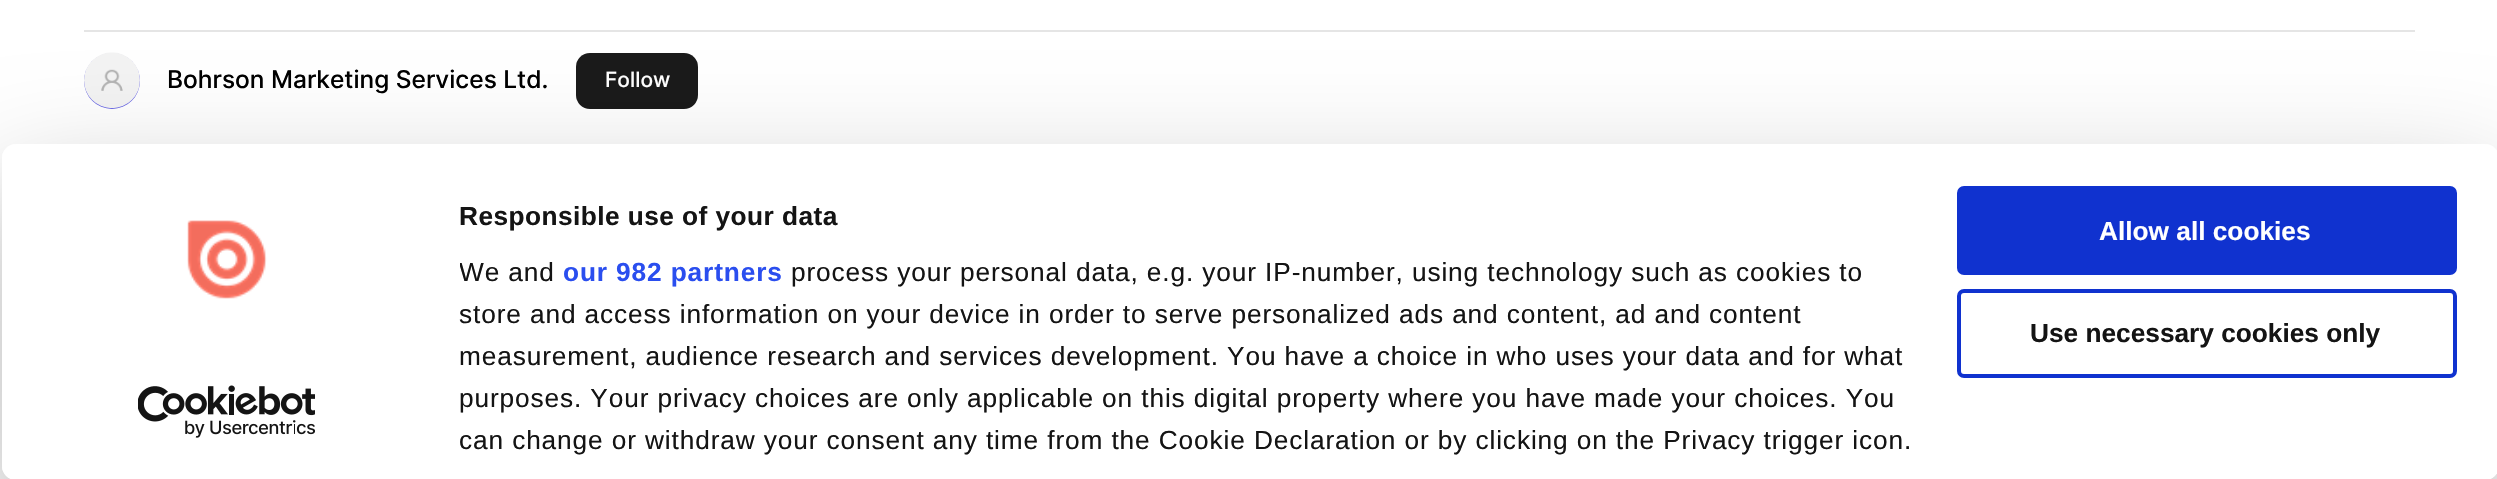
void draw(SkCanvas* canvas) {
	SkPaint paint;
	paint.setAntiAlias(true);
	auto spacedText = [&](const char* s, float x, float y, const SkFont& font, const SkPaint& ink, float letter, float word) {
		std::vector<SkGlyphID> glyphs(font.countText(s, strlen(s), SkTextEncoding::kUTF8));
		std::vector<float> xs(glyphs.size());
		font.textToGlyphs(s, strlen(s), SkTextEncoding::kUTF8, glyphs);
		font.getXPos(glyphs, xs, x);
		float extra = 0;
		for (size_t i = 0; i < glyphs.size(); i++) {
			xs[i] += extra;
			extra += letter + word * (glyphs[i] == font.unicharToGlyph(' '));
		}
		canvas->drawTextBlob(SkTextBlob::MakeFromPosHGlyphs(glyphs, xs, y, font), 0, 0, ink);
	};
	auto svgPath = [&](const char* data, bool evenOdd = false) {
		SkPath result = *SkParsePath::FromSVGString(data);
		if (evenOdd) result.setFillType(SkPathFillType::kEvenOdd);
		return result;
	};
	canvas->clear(0xffffffff);
	paint.setColor(0xffe5e5e5);
	canvas->drawRect(SkRect::MakeXYWH(84, 30, 2331, 2), paint);
	paint.setColor(0xff5f5de4);
	canvas->drawCircle(112, 81, 28, paint);
	canvas->drawImageRect(SkImages::DeferredFromEncodedData(SkData::MakeFromFileName("img1.png")), SkRect::MakeXYWH(84, 52, 56, 57), SkSamplingOptions());
	SkFont f1(fontMgr->matchFamilyStyle("Inter", SkFontStyle(500, SkFontStyle::kNormal_Width, SkFontStyle::kUpright_Slant)), 24.5);
	f1.setSubpixel(true);
	paint.setColor(0xff000000);
	canvas->drawString("Bohrson Marketing Services Ltd.", 167, 88, f1, paint);
	paint.setColor(0xff1a1a1a);
	canvas->drawRoundRect(SkRect::MakeXYWH(576, 53, 122, 56), 14, 14, paint);
	SkFont f2(fontMgr->matchFamilyStyle("Inter", SkFontStyle(500, SkFontStyle::kNormal_Width, SkFontStyle::kUpright_Slant)), 21);
	f2.setSubpixel(true);
	paint.setColor(0xffffffff);
	canvas->drawString("Follow", 605, 87, f2, paint);
	canvas->save();
	canvas->clipPath(svgPath("M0 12H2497V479H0ZM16 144H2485C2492.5 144 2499 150.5 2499 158V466C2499 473.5 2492.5 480 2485 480H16C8.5 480 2 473.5 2 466V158C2 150.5 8.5 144 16 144Z", true), true);
	paint.setColor(0x4d000000);
	paint.setMaskFilter(SkMaskFilter::MakeBlur(kNormal_SkBlurStyle, 61));
	canvas->drawRoundRect(SkRect::MakeXYWH(2, 196, 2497, 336), 14, 14, paint);
	paint.setMaskFilter(nullptr);
	canvas->restore();
	paint.setColor(0xffffffff);
	canvas->drawRoundRect(SkRect::MakeXYWH(2, 144, 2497, 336), 14, 14, paint);
	canvas->drawImageRect(SkImages::DeferredFromEncodedData(SkData::MakeFromFileName("img2.png")), SkRect::MakeXYWH(187, 220, 80, 79), SkSamplingOptions());
	canvas->drawImageRect(SkImages::DeferredFromEncodedData(SkData::MakeFromFileName("img3.png")), SkRect::MakeXYWH(138, 385, 177, 53), SkSamplingOptions());
	SkFont f3(fontMgr->matchFamilyStyle("Liberation Sans", SkFontStyle::Bold()), 26.25);
	f3.setSubpixel(true);
	paint.setColor(0xff141414);
	spacedText("Responsible use of your data", 459, 225, f3, paint, 0.45, 0);
	canvas->save();
	canvas->clipRect(SkRect::MakeXYWH(460, 196, 1486, 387));
	SkFont f4(fontMgr->matchFamilyStyle("Liberation Sans", SkFontStyle::Normal()), 26.25);
	f4.setSubpixel(true);
	spacedText("We and", 459, 281, f4, paint, 0.88, 0);
	canvas->restore();
	paint.setColor(0xff2a4eef);
	spacedText("our 982 partners", 563, 281, f3, paint, 0.88, 0);
	paint.setColor(0xff141414);
	spacedText("process your personal data, e.g. your IP-number, using technology such as cookies to", 791, 281, f4, paint, 0.88, 0);
	spacedText("store and access information on your device in order to serve personalized ads and content, ad and content", 459, 323, f4, paint, 0.88, 0);
	spacedText("measurement, audience research and services development. You have a choice in who uses your data and for what", 459, 365, f4, paint, 0.88, 0);
	spacedText("purposes. Your privacy choices are only applicable on this digital property where you have made your choices. You", 459, 407, f4, paint, 0.88, 0);
	canvas->save();
	canvas->clipRect(SkRect::MakeXYWH(460, 196, 1486, 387));
	spacedText("can change or withdraw your consent any time from the Cookie Declaration or by clicking on the Privacy trigger icon.", 459, 449, f4, paint, 0.88, 0);
	canvas->restore();
	paint.setColor(0xff1032cf);
	canvas->drawRoundRect(SkRect::MakeXYWH(1959, 188, 496, 85), 5, 5, paint);
	paint.setStroke(true);
	paint.setStrokeWidth(4);
	canvas->drawRoundRect(SkRect::MakeXYWH(1959, 188, 496, 85), 5, 5, paint);
	paint.setStroke(false);
	paint.setColor(0xffffffff);
	canvas->drawString("Allow all cookies", 2099, 240, f3, paint);
	paint.setStroke(true);
	paint.setColor(0xff1032cf);
	canvas->drawRoundRect(SkRect::MakeXYWH(1959, 291, 496, 85), 5, 5, paint);
	paint.setStroke(false);
	paint.setColor(0xff141414);
	canvas->drawString("Use necessary cookies only", 2030, 342, f3, paint);
}
